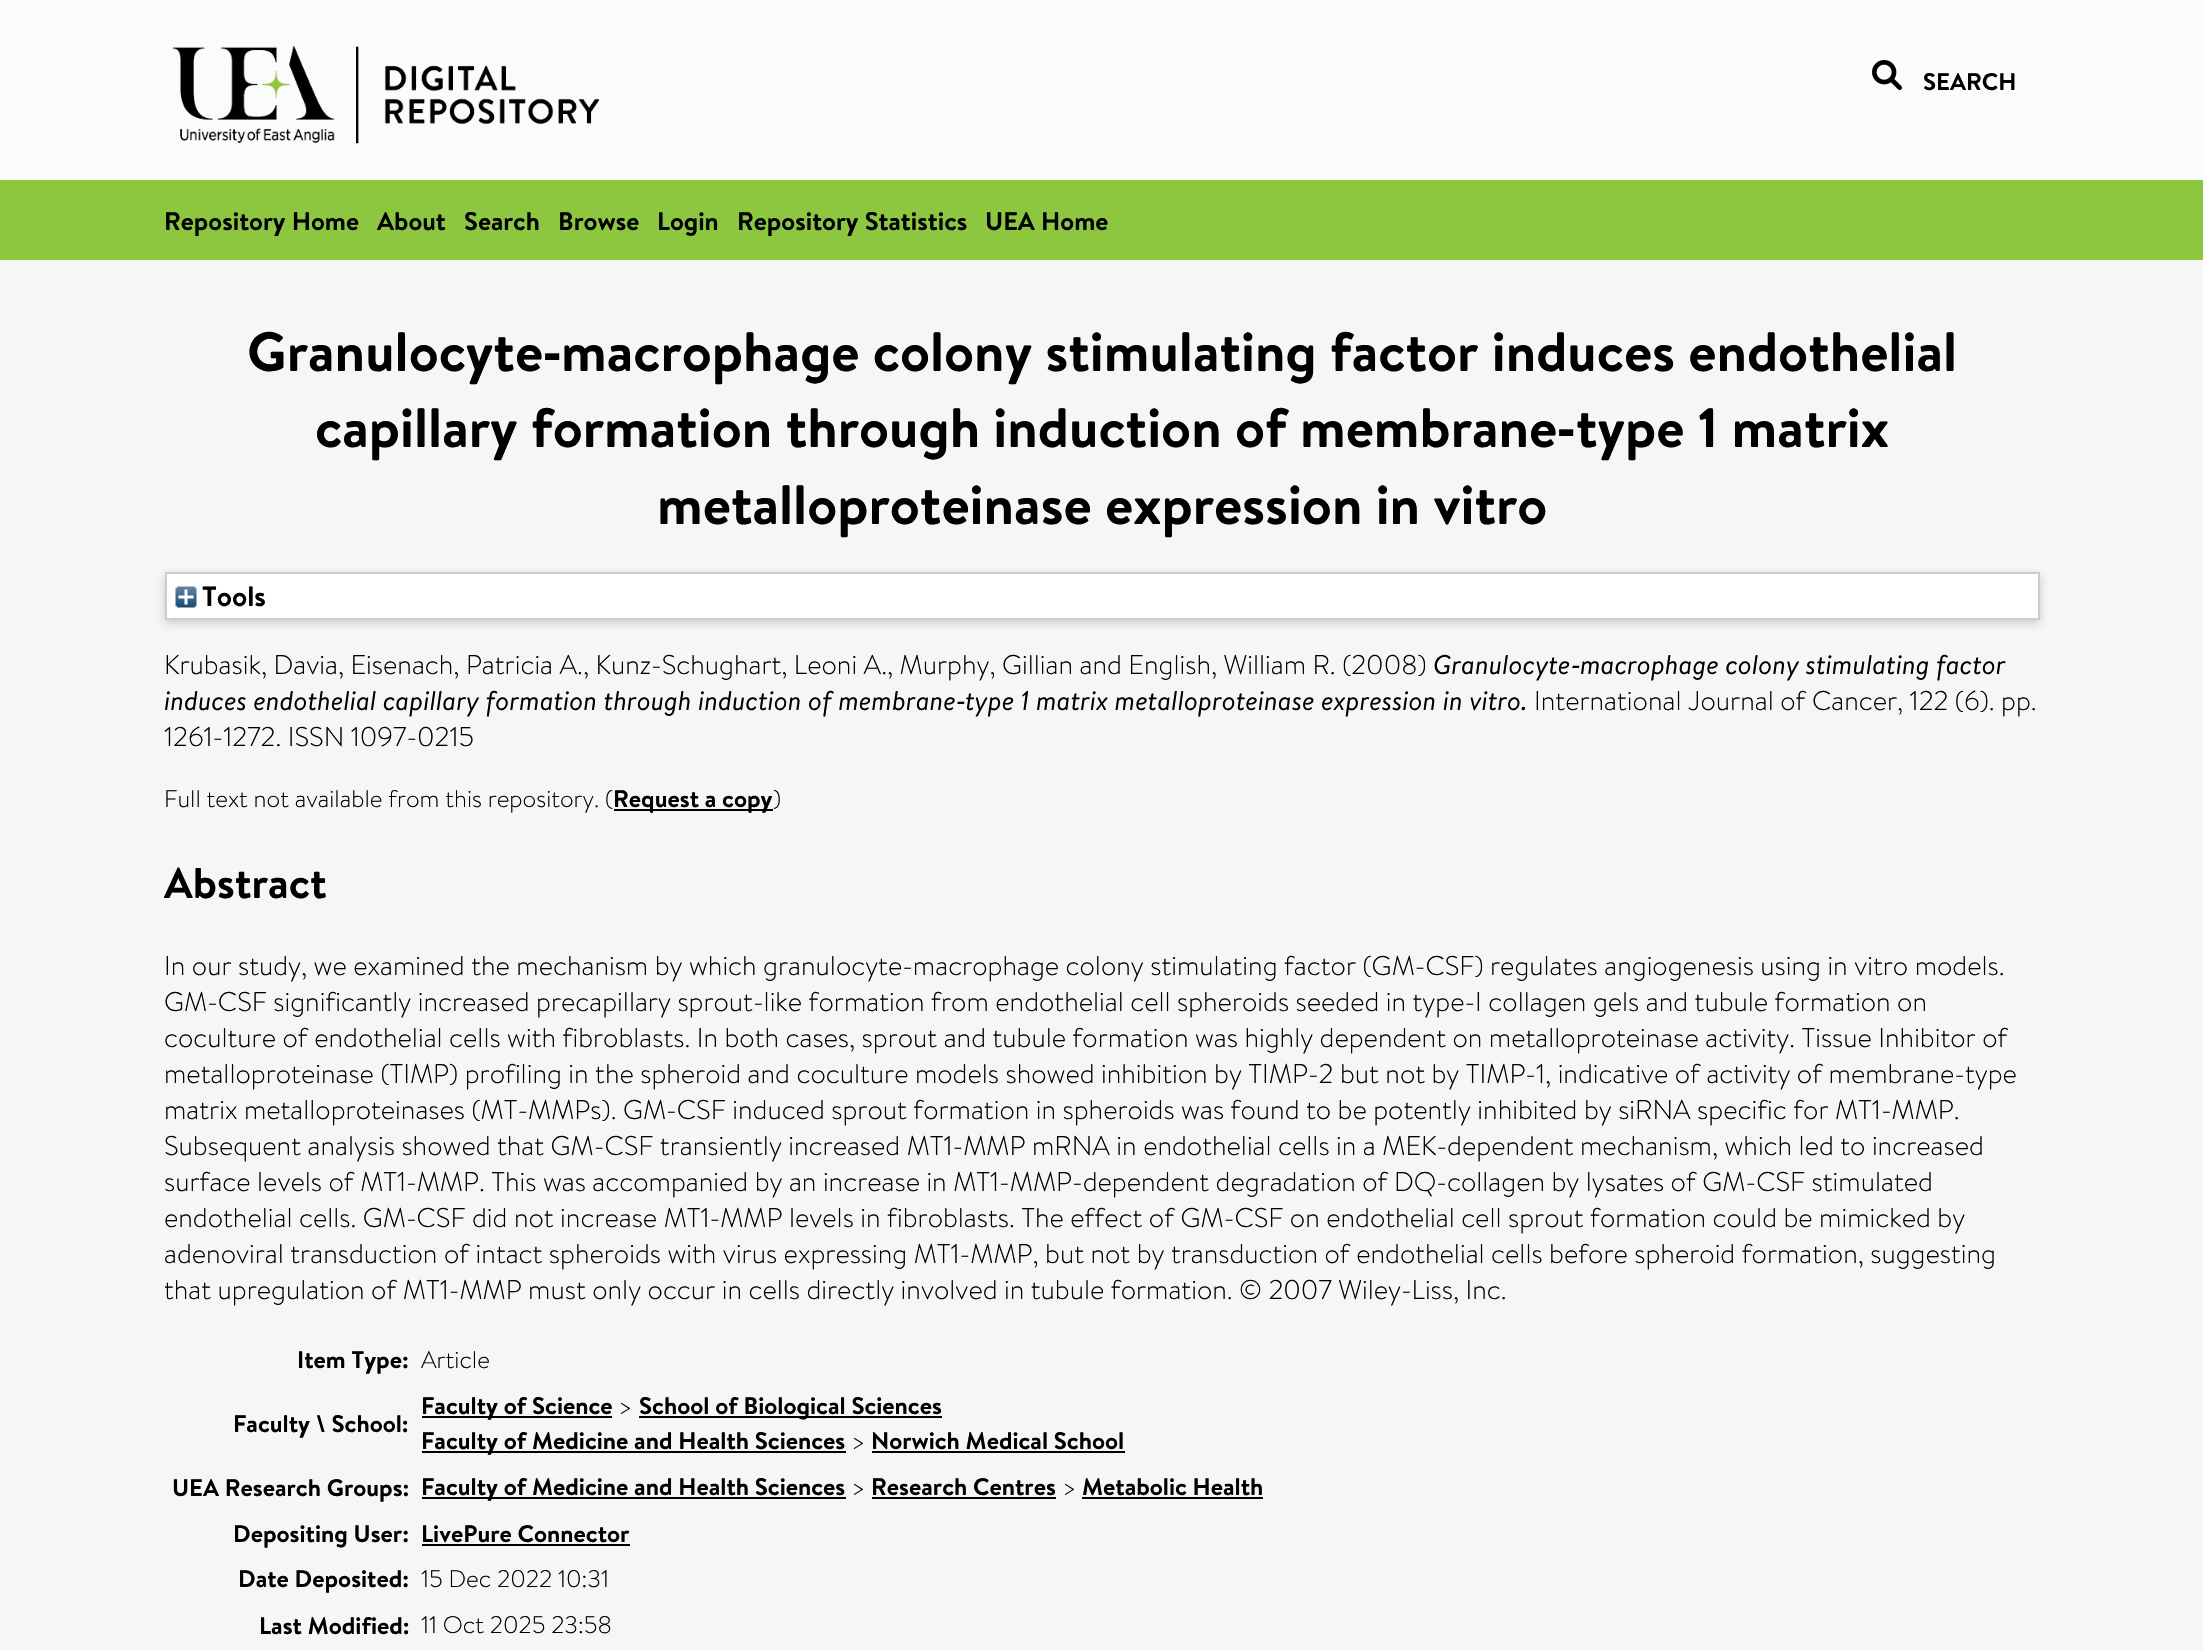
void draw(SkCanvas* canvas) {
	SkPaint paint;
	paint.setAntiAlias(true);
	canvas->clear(0xfff6f6f6);
	paint.setColor(0xfffbfbfb);
	canvas->drawRect(SkRect::MakeXYWH(0, 0, 2203, 180), paint);
	canvas->drawImageRect(SkImages::DeferredFromEncodedData(SkData::MakeFromFileName("img1.png")), SkRect::MakeXYWH(173, 46, 427, 98), SkSamplingOptions());
	canvas->drawImageRect(SkImages::DeferredFromEncodedData(SkData::MakeFromFileName("img2.png")), SkRect::MakeXYWH(1872, 60, 30, 30), SkSamplingOptions());
	SkFont f1(fontMgr->matchFamilyStyle("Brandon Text", SkFontStyle::Bold()), 24);
	f1.setSubpixel(true);
	paint.setColor(0xff000000);
	canvas->drawString("SEARCH", 1923, 90, f1, paint);
	paint.setColor(0xff8dc63f);
	canvas->drawRect(SkRect::MakeXYWH(0, 180, 2203, 80), paint);
	SkFont f2(fontMgr->matchFamilyStyle("Brandon Text", SkFontStyle::Bold()), 25.5);
	f2.setSubpixel(true);
	paint.setColor(0xff000000);
	canvas->drawString("Repository Home", 164, 230, f2, paint);
	canvas->drawString("About", 377, 230, f2, paint);
	canvas->drawString("Search", 464, 230, f2, paint);
	canvas->drawString("Browse", 558, 230, f2, paint);
	canvas->drawString("Login", 657, 230, f2, paint);
	canvas->drawString("Repository Statistics", 737, 230, f2, paint);
	canvas->drawString("UEA Home", 985, 230, f2, paint);
	SkFont f3(fontMgr->matchFamilyStyle("Brandon Text", SkFontStyle::Bold()), 55.2);
	f3.setSubpixel(true);
	canvas->drawString("Granulocyte", 247, 371, f3, paint);
	SkFont f4(fontMgr->matchFamilyStyle("Liberation Sans", SkFontStyle::Bold()), 55.2);
	f4.setSubpixel(true);
	canvas->drawString("‐", 543, 371, f4, paint);
	canvas->drawString("macrophage colony stimulating factor induces endothelial", 561, 371, f3, paint);
	canvas->drawString("capillary formation through induction of membrane", 315, 447, f3, paint);
	canvas->drawString("‐", 1557, 447, f4, paint);
	canvas->drawString("type 1 matrix", 1576, 447, f3, paint);
	canvas->drawString("metalloproteinase expression in vitro", 657, 524, f3, paint);
	paint.setColor(0x4d646464);
	paint.setMaskFilter(SkMaskFilter::MakeBlur(kNormal_SkBlurStyle, 4.5));
	canvas->drawRect(SkRect::MakeXYWH(165, 575, 1875, 48), paint);
	paint.setMaskFilter(nullptr);
	paint.setColor(0xffffffff);
	canvas->drawRect(SkRect::MakeXYWH(166, 573, 1873, 46), paint);
	paint.setStroke(true);
	paint.setStrokeWidth(2);
	paint.setColor(0xffcccccc);
	canvas->drawRect(SkRect::MakeXYWH(166, 573, 1873, 46), paint);
	canvas->drawImageRect(SkImages::DeferredFromEncodedData(SkData::MakeFromFileName("img3.png")), SkRect::MakeXYWH(175, 586, 22, 22), SkSamplingOptions());
	SkFont f5(fontMgr->matchFamilyStyle("Brandon Text", SkFontStyle::Bold()), 28);
	f5.setSubpixel(true);
	paint.setStroke(false);
	paint.setColor(0xff000000);
	canvas->drawString("Tools", 202, 606, f5, paint);
	SkFont f6(fontMgr->matchFamilyStyle("Brandon Text", SkFontStyle(300, SkFontStyle::kNormal_Width, SkFontStyle::kUpright_Slant)), 27);
	f6.setSubpixel(true);
	canvas->drawString("Krubasik, Davia, Eisenach, Patricia A., Kunz-Schughart, Leoni A., Murphy, Gillian and English, William R. (2008)", 164, 674, f6, paint);
	SkFont f7(fontMgr->matchFamilyStyle("Brandon Text", SkFontStyle::Italic()), 27);
	f7.setSubpixel(true);
	canvas->drawString("Granulocyte", 1433, 674, f7, paint);
	SkFont f8(fontMgr->matchFamilyStyle("Liberation Sans", SkFontStyle::Italic()), 27);
	f8.setSubpixel(true);
	canvas->drawString("‐", 1571, 674, f8, paint);
	canvas->drawString("macrophage colony stimulating factor", 1580, 674, f7, paint);
	canvas->drawString("induces endothelial capillary formation through induction of membrane", 164, 710, f7, paint);
	canvas->drawString("‐", 956, 710, f8, paint);
	canvas->drawString("type 1 matrix metalloproteinase expression in vitro.", 965, 710, f7, paint);
	canvas->drawString("International Journal of Cancer, 122 (6). pp.", 1534, 710, f6, paint);
	canvas->drawString("1261-1272. ISSN 1097-0215", 164, 746, f6, paint);
	SkFont f9(fontMgr->matchFamilyStyle("Brandon Text", SkFontStyle(300, SkFontStyle::kNormal_Width, SkFontStyle::kUpright_Slant)), 24);
	f9.setSubpixel(true);
	canvas->drawString("Full text not available from this repository. (", 164, 807, f9, paint);
	canvas->drawRect(SkRect::MakeXYWH(614, 809, 159, 2), paint);
	canvas->drawString("Request a copy", 613, 807, f1, paint);
	canvas->drawString(")", 773, 807, f9, paint);
	SkFont f10(fontMgr->matchFamilyStyle("Brandon Text", SkFontStyle::Bold()), 43);
	f10.setSubpixel(true);
	canvas->drawString("Abstract", 164, 898, f10, paint);
	canvas->drawString("In our study, we examined the mechanism by which granulocyte-macrophage colony stimulating factor (GM-CSF) regulates angiogenesis using in vitro models.", 164, 975, f6, paint);
	canvas->drawString("GM-CSF significantly increased precapillary sprout-like formation from endothelial cell spheroids seeded in type-I collagen gels and tubule formation on", 164, 1011, f6, paint);
	canvas->drawString("coculture of endothelial cells with fibroblasts. In both cases, sprout and tubule formation was highly dependent on metalloproteinase activity. Tissue Inhibitor of", 164, 1047, f6, paint);
	canvas->drawString("metalloproteinase (TIMP) profiling in the spheroid and coculture models showed inhibition by TIMP-2 but not by TIMP-1, indicative of activity of membrane-type", 164, 1083, f6, paint);
	canvas->drawString("matrix metalloproteinases (MT-MMPs). GM-CSF induced sprout formation in spheroids was found to be potently inhibited by siRNA specific for MT1-MMP.", 164, 1119, f6, paint);
	canvas->drawString("Subsequent analysis showed that GM-CSF transiently increased MT1-MMP mRNA in endothelial cells in a MEK-dependent mechanism, which led to increased", 164, 1155, f6, paint);
	canvas->drawString("surface levels of MT1-MMP. This was accompanied by an increase in MT1-MMP-dependent degradation of DQ-collagen by lysates of GM-CSF stimulated", 164, 1191, f6, paint);
	canvas->drawString("endothelial cells. GM-CSF did not increase MT1-MMP levels in fibroblasts. The effect of GM-CSF on endothelial cell sprout formation could be mimicked by", 164, 1227, f6, paint);
	canvas->drawString("adenoviral transduction of intact spheroids with virus expressing MT1-MMP, but not by transduction of endothelial cells before spheroid formation, suggesting", 164, 1263, f6, paint);
	canvas->drawString("that upregulation of MT1-MMP must only occur in cells directly involved in tubule formation. © 2007 Wiley-Liss, Inc.", 164, 1299, f6, paint);
	canvas->drawString("Item Type:", 297, 1368, f1, paint);
	canvas->drawString("Article", 421, 1368, f9, paint);
	canvas->drawString("Faculty \\ School:", 233, 1432, f1, paint);
	canvas->drawRect(SkRect::MakeXYWH(422, 1416, 190, 2), paint);
	canvas->drawString("Faculty of Science", 421, 1414, f1, paint);
	canvas->drawString(">", 618, 1414, f9, paint);
	canvas->drawRect(SkRect::MakeXYWH(639, 1416, 303, 2), paint);
	canvas->drawString("School of Biological Sciences", 639, 1414, f1, paint);
	canvas->drawRect(SkRect::MakeXYWH(422, 1451, 424, 2), paint);
	canvas->drawString("Faculty of Medicine and Health Sciences", 421, 1449, f1, paint);
	canvas->drawString(">", 851, 1449, f9, paint);
	canvas->drawString("Norwich Medical School", 871, 1449, f1, paint);
	canvas->drawRect(SkRect::MakeXYWH(872, 1451, 253, 2), paint);
	canvas->drawString("UEA Research Groups:", 172, 1496, f1, paint);
	canvas->drawRect(SkRect::MakeXYWH(422, 1497, 424, 2), paint);
	canvas->drawString("Faculty of Medicine and Health Sciences", 421, 1495, f1, paint);
	canvas->drawString(">", 851, 1495, f9, paint);
	canvas->drawString("Research Centres", 871, 1495, f1, paint);
	canvas->drawRect(SkRect::MakeXYWH(872, 1497, 184, 2), paint);
	canvas->drawString(">", 1062, 1495, f9, paint);
	canvas->drawString("Metabolic Health", 1082, 1495, f1, paint);
	canvas->drawRect(SkRect::MakeXYWH(1082, 1497, 181, 2), paint);
	canvas->drawString("Depositing User:", 233, 1542, f1, paint);
	canvas->drawString("LivePure Connector", 421, 1542, f1, paint);
	canvas->drawRect(SkRect::MakeXYWH(422, 1544, 208, 2), paint);
	canvas->drawString("Date Deposited:", 238, 1587, f1, paint);
	canvas->drawString("15 Dec 2022 10:31", 421, 1587, f9, paint);
	canvas->drawString("Last Modified:", 259, 1634, f1, paint);
	canvas->drawString("11 Oct 2025 23:58", 421, 1633, f9, paint);
}
